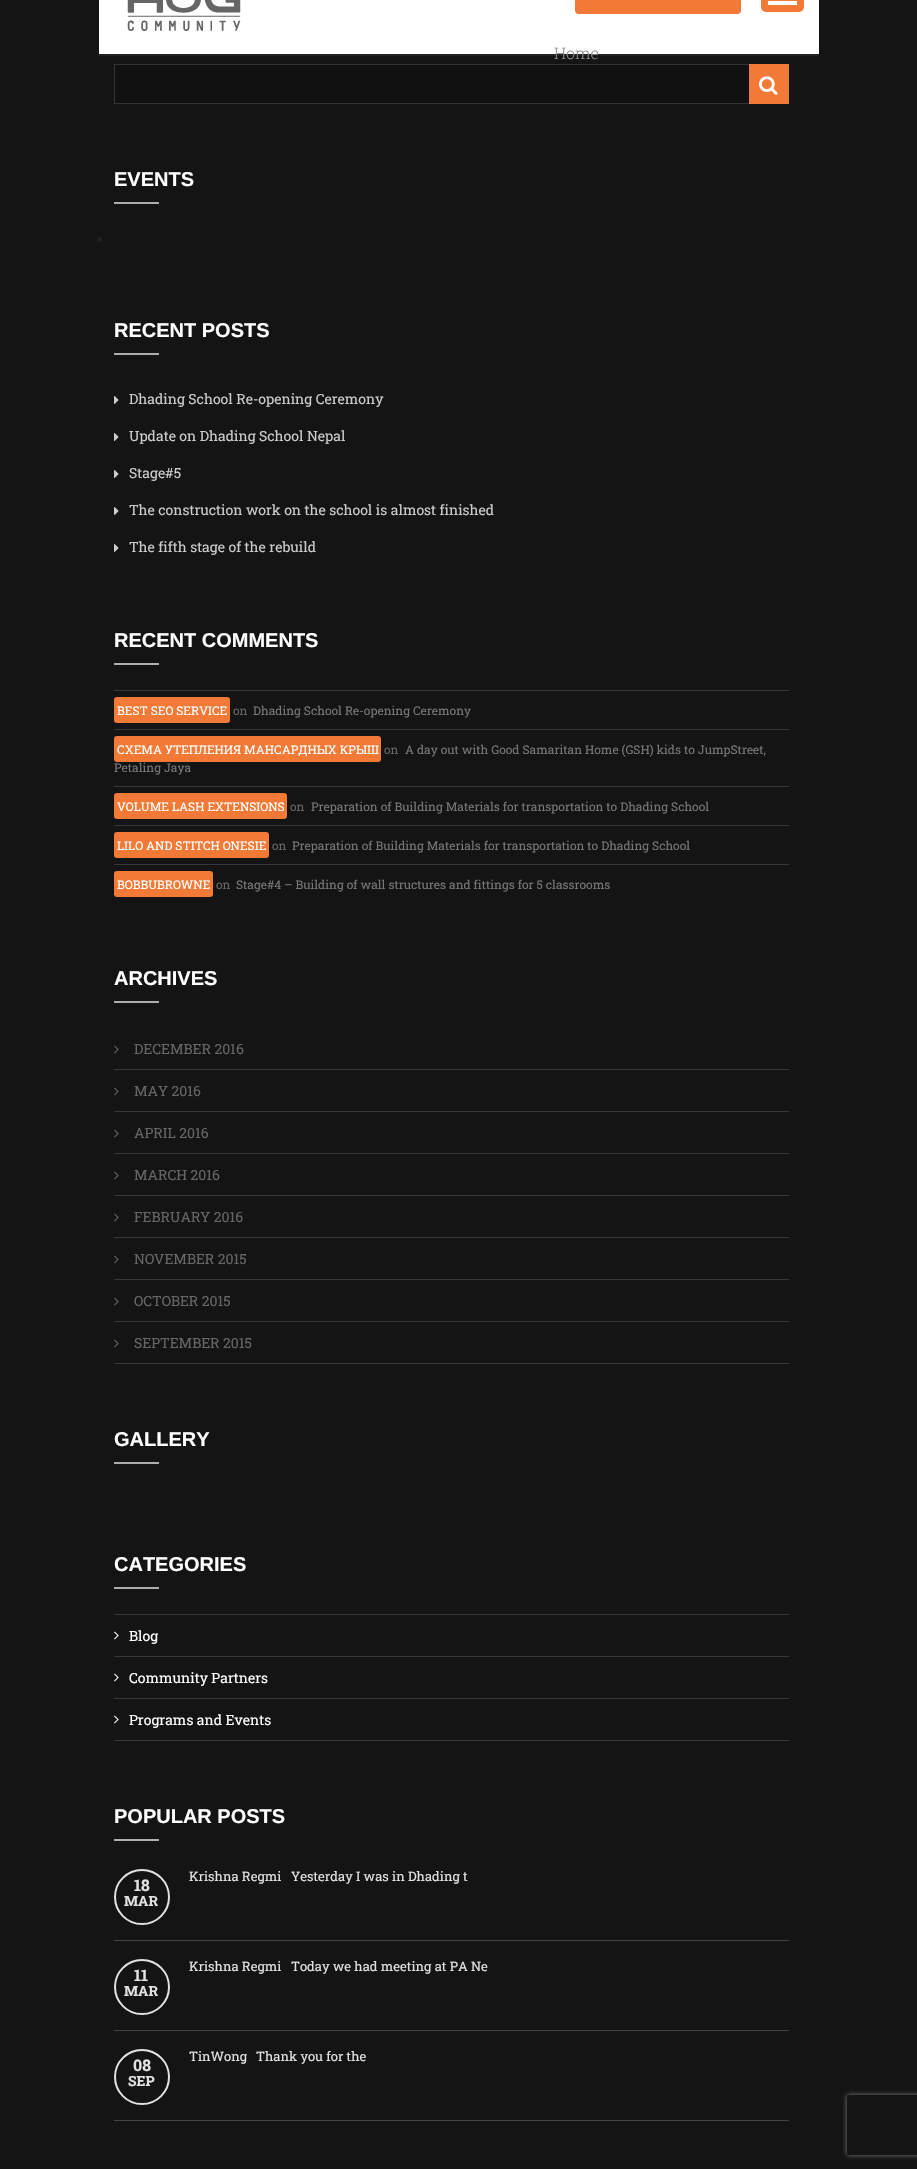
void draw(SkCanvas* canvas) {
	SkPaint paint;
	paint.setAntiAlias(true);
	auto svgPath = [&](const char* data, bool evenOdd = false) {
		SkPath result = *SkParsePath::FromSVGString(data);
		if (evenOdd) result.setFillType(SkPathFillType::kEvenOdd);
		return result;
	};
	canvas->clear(0xff141414);
	paint.setColor(0xffffffff);
	canvas->drawRect(SkRect::MakeXYWH(99, 0, 720, 54), paint);
	paint.setColor(0xff222126);
	canvas->drawRect(SkRect::MakeXYWH(99, 54, 720, 2), paint);
	canvas->drawImageRect(SkImages::DeferredFromEncodedData(SkData::MakeFromFileName("img1.png")), SkRect::MakeXYWH(127, 0, 114, 31), SkSamplingOptions());
	paint.setColor(0xfff37936);
	canvas->drawRoundRect(SkRect::MakeXYWH(575, -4, 166, 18), 4, 4, paint);
	canvas->drawRoundRect(SkRect::MakeXYWH(761, -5, 43, 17), 5, 5, paint);
	paint.setColor(0xffffffff);
	canvas->drawRect(SkRect::MakeXYWH(768, 1, 29, 4), paint);
	SkFont f1(fontMgr->matchFamilyStyle("Roboto Slab", SkFontStyle(300, SkFontStyle::kNormal_Width, SkFontStyle::kUpright_Slant)), 16);
	f1.setSubpixel(true);
	paint.setColor(0xff8d8d8e);
	canvas->drawString("Home", 554, 59, f1, paint);
	paint.setColor(0xff111111);
	canvas->drawRect(SkRect::MakeXYWH(115, 65, 634, 38), paint);
	paint.setStroke(true);
	paint.setStrokeWidth(1);
	paint.setColor(0xff333333);
	canvas->drawRect(SkRect::MakeXYWH(114.5, 64.5, 674, 39), paint);
	paint.setStroke(false);
	paint.setColor(0xfff37936);
	canvas->drawRect(SkRect::MakeXYWH(749, 64, 40, 40), paint);
	canvas->drawImageRect(SkImages::DeferredFromEncodedData(SkData::MakeFromFileName("img2.png")), SkRect::MakeXYWH(759, 76, 19, 19), SkSamplingOptions());
	SkFont f2(fontMgr->matchFamilyStyle("Liberation Sans", SkFontStyle::Bold()), 20);
	f2.setSubpixel(true);
	paint.setColor(0xffffffff);
	canvas->drawString("EVENTS", 114, 186, f2, paint);
	paint.setColor(0xffadadad);
	canvas->drawRect(SkRect::MakeXYWH(114, 202, 45, 2), paint);
	paint.setColor(0xff212121);
	canvas->drawCircle(99.5, 239.5, 2.5, paint);
	paint.setColor(0xffffffff);
	canvas->drawString("RECENT POSTS", 114, 337, f2, paint);
	paint.setColor(0xffadadad);
	canvas->drawRect(SkRect::MakeXYWH(114, 353, 45, 2), paint);
	canvas->drawImageRect(SkImages::DeferredFromEncodedData(SkData::MakeFromFileName("img3.png")), SkRect::MakeXYWH(114, 396, 5, 8), SkSamplingOptions());
	SkFont f3(fontMgr->matchFamilyStyle("Roboto Slab", SkFontStyle::Normal()), 14);
	f3.setSubpixel(true);
	paint.setColor(0xffcccccc);
	canvas->drawString("Dhading School Re-opening Ceremony", 129, 404, f3, paint);
	canvas->drawImageRect(SkImages::DeferredFromEncodedData(SkData::MakeFromFileName("img3.png")), SkRect::MakeXYWH(114, 433, 5, 8), SkSamplingOptions());
	canvas->drawString("Update on Dhading School Nepal", 129, 441, f3, paint);
	canvas->drawImageRect(SkImages::DeferredFromEncodedData(SkData::MakeFromFileName("img3.png")), SkRect::MakeXYWH(114, 470, 5, 8), SkSamplingOptions());
	canvas->drawString("Stage#5", 129, 478, f3, paint);
	canvas->drawImageRect(SkImages::DeferredFromEncodedData(SkData::MakeFromFileName("img3.png")), SkRect::MakeXYWH(114, 507, 5, 8), SkSamplingOptions());
	canvas->drawString("The construction work on the school is almost finished", 129, 515, f3, paint);
	canvas->drawImageRect(SkImages::DeferredFromEncodedData(SkData::MakeFromFileName("img3.png")), SkRect::MakeXYWH(114, 544, 5, 8), SkSamplingOptions());
	canvas->drawString("The fifth stage of the rebuild", 129, 552, f3, paint);
	paint.setColor(0xffffffff);
	canvas->drawString("RECENT COMMENTS", 114, 647, f2, paint);
	paint.setColor(0xffadadad);
	canvas->drawRect(SkRect::MakeXYWH(114, 663, 45, 2), paint);
	paint.setColor(0xff373737);
	canvas->drawRect(SkRect::MakeXYWH(114, 690, 675, 1), paint);
	paint.setColor(0xfff37936);
	canvas->drawRoundRect(SkRect::MakeXYWH(114, 697, 116, 26), 3, 3, paint);
	SkFont f4(fontMgr->matchFamilyStyle("Roboto Slab", SkFontStyle::Normal()), 12);
	f4.setSubpixel(true);
	paint.setColor(0xffffffff);
	canvas->drawString("BEST SEO SERVICE", 117, 715, f4, paint);
	paint.setColor(0xff666666);
	canvas->drawString("on", 233, 715, f4, paint);
	paint.setColor(0xff777777);
	canvas->drawString("Dhading School Re-opening Ceremony", 253, 715, f4, paint);
	paint.setColor(0xff373737);
	canvas->drawRect(SkRect::MakeXYWH(114, 729, 675, 1), paint);
	paint.setColor(0xfff37936);
	canvas->drawRoundRect(SkRect::MakeXYWH(114, 736, 267, 26), 3, 3, paint);
	paint.setColor(0xffffffff);
	canvas->drawString("СХЕМА УТЕПЛЕНИЯ МАНСАРДНЫХ КРЫШ", 117, 754, f4, paint);
	paint.setColor(0xff666666);
	canvas->drawString("on", 384, 754, f4, paint);
	paint.setColor(0xff777777);
	canvas->drawString("A day out with Good Samaritan Home (GSH) kids to JumpStreet,", 405, 754, f4, paint);
	canvas->drawString("Petaling Jaya", 114, 772, f4, paint);
	paint.setColor(0xff373737);
	canvas->drawRect(SkRect::MakeXYWH(114, 786, 675, 1), paint);
	paint.setColor(0xfff37936);
	canvas->drawRoundRect(SkRect::MakeXYWH(114, 793, 173, 26), 3, 3, paint);
	paint.setColor(0xffffffff);
	canvas->drawString("VOLUME LASH EXTENSIONS", 117, 811, f4, paint);
	paint.setColor(0xff666666);
	canvas->drawString("on", 290, 811, f4, paint);
	paint.setColor(0xff777777);
	canvas->drawString("Preparation of Building Materials for transportation to Dhading School", 311, 811, f4, paint);
	paint.setColor(0xff373737);
	canvas->drawRect(SkRect::MakeXYWH(114, 825, 675, 1), paint);
	paint.setColor(0xfff37936);
	canvas->drawRoundRect(SkRect::MakeXYWH(114, 832, 155, 26), 3, 3, paint);
	paint.setColor(0xffffffff);
	canvas->drawString("LILO AND STITCH ONESIE", 117, 850, f4, paint);
	paint.setColor(0xff666666);
	canvas->drawString("on", 272, 850, f4, paint);
	paint.setColor(0xff777777);
	canvas->drawString("Preparation of Building Materials for transportation to Dhading School", 292, 850, f4, paint);
	paint.setColor(0xff373737);
	canvas->drawRect(SkRect::MakeXYWH(114, 864, 675, 1), paint);
	paint.setColor(0xfff37936);
	canvas->drawRoundRect(SkRect::MakeXYWH(114, 871, 99, 26), 3, 3, paint);
	paint.setColor(0xffffffff);
	canvas->drawString("BOBBUBROWNE", 117, 889, f4, paint);
	paint.setColor(0xff666666);
	canvas->drawString("on", 216, 889, f4, paint);
	paint.setColor(0xff777777);
	canvas->drawString("Stage#4 – Building of wall structures and fittings for 5 classrooms", 236, 889, f4, paint);
	paint.setColor(0xffffffff);
	canvas->drawString("ARCHIVES", 114, 985, f2, paint);
	paint.setColor(0xffadadad);
	canvas->drawRect(SkRect::MakeXYWH(114, 1001, 45, 2), paint);
	paint.setColor(0xff373737);
	canvas->drawRect(SkRect::MakeXYWH(114, 1069, 675, 1), paint);
	canvas->drawImageRect(SkImages::DeferredFromEncodedData(SkData::MakeFromFileName("img4.png")), SkRect::MakeXYWH(114, 1045, 5, 9), SkSamplingOptions());
	paint.setColor(0xff666666);
	canvas->drawString("DECEMBER 2016", 134, 1054, f3, paint);
	paint.setColor(0xff373737);
	canvas->drawRect(SkRect::MakeXYWH(114, 1111, 675, 1), paint);
	canvas->drawImageRect(SkImages::DeferredFromEncodedData(SkData::MakeFromFileName("img4.png")), SkRect::MakeXYWH(114, 1087, 5, 9), SkSamplingOptions());
	paint.setColor(0xff666666);
	canvas->drawString("MAY 2016", 134, 1096, f3, paint);
	paint.setColor(0xff373737);
	canvas->drawRect(SkRect::MakeXYWH(114, 1153, 675, 1), paint);
	canvas->drawImageRect(SkImages::DeferredFromEncodedData(SkData::MakeFromFileName("img4.png")), SkRect::MakeXYWH(114, 1129, 5, 9), SkSamplingOptions());
	paint.setColor(0xff666666);
	canvas->drawString("APRIL 2016", 134, 1138, f3, paint);
	paint.setColor(0xff373737);
	canvas->drawRect(SkRect::MakeXYWH(114, 1195, 675, 1), paint);
	canvas->drawImageRect(SkImages::DeferredFromEncodedData(SkData::MakeFromFileName("img4.png")), SkRect::MakeXYWH(114, 1171, 5, 9), SkSamplingOptions());
	paint.setColor(0xff666666);
	canvas->drawString("MARCH 2016", 134, 1180, f3, paint);
	paint.setColor(0xff373737);
	canvas->drawRect(SkRect::MakeXYWH(114, 1237, 675, 1), paint);
	canvas->drawImageRect(SkImages::DeferredFromEncodedData(SkData::MakeFromFileName("img4.png")), SkRect::MakeXYWH(114, 1213, 5, 9), SkSamplingOptions());
	paint.setColor(0xff666666);
	canvas->drawString("FEBRUARY 2016", 134, 1222, f3, paint);
	paint.setColor(0xff373737);
	canvas->drawRect(SkRect::MakeXYWH(114, 1279, 675, 1), paint);
	canvas->drawImageRect(SkImages::DeferredFromEncodedData(SkData::MakeFromFileName("img4.png")), SkRect::MakeXYWH(114, 1255, 5, 9), SkSamplingOptions());
	paint.setColor(0xff666666);
	canvas->drawString("NOVEMBER 2015", 134, 1264, f3, paint);
	paint.setColor(0xff373737);
	canvas->drawRect(SkRect::MakeXYWH(114, 1321, 675, 1), paint);
	canvas->drawImageRect(SkImages::DeferredFromEncodedData(SkData::MakeFromFileName("img4.png")), SkRect::MakeXYWH(114, 1297, 5, 9), SkSamplingOptions());
	paint.setColor(0xff666666);
	canvas->drawString("OCTOBER 2015", 134, 1306, f3, paint);
	paint.setColor(0xff373737);
	canvas->drawRect(SkRect::MakeXYWH(114, 1363, 675, 1), paint);
	canvas->drawImageRect(SkImages::DeferredFromEncodedData(SkData::MakeFromFileName("img4.png")), SkRect::MakeXYWH(114, 1339, 5, 9), SkSamplingOptions());
	paint.setColor(0xff666666);
	canvas->drawString("SEPTEMBER 2015", 134, 1348, f3, paint);
	paint.setColor(0xffffffff);
	canvas->drawString("GALLERY", 114, 1446, f2, paint);
	paint.setColor(0xffadadad);
	canvas->drawRect(SkRect::MakeXYWH(114, 1462, 45, 2), paint);
	paint.setColor(0xffffffff);
	canvas->drawString("CATEGORIES", 114, 1571, f2, paint);
	paint.setColor(0xffadadad);
	canvas->drawRect(SkRect::MakeXYWH(114, 1587, 45, 2), paint);
	paint.setColor(0xff373737);
	canvas->drawRect(SkRect::MakeXYWH(114, 1614, 675, 1), paint);
	canvas->drawRect(SkRect::MakeXYWH(114, 1656, 675, 1), paint);
	canvas->drawImageRect(SkImages::DeferredFromEncodedData(SkData::MakeFromFileName("img5.png")), SkRect::MakeXYWH(114, 1631, 5, 9), SkSamplingOptions());
	paint.setColor(0xffffffff);
	canvas->drawString("Blog", 129, 1641, f3, paint);
	paint.setColor(0xff373737);
	canvas->drawRect(SkRect::MakeXYWH(114, 1698, 675, 1), paint);
	canvas->drawImageRect(SkImages::DeferredFromEncodedData(SkData::MakeFromFileName("img5.png")), SkRect::MakeXYWH(114, 1673, 5, 9), SkSamplingOptions());
	paint.setColor(0xffffffff);
	canvas->drawString("Community Partners", 129, 1683, f3, paint);
	paint.setColor(0xff373737);
	canvas->drawRect(SkRect::MakeXYWH(114, 1740, 675, 1), paint);
	canvas->drawImageRect(SkImages::DeferredFromEncodedData(SkData::MakeFromFileName("img5.png")), SkRect::MakeXYWH(114, 1715, 5, 9), SkSamplingOptions());
	paint.setColor(0xffffffff);
	canvas->drawString("Programs and Events", 129, 1725, f3, paint);
	canvas->drawString("POPULAR POSTS", 114, 1823, f2, paint);
	paint.setColor(0xffadadad);
	canvas->drawRect(SkRect::MakeXYWH(114, 1839, 45, 2), paint);
	paint.setColor(0xff434343);
	canvas->drawRect(SkRect::MakeXYWH(114, 1940, 675, 1), paint);
	SkFont f5(fontMgr->matchFamilyStyle("Roboto Slab", SkFontStyle::Normal()), 13);
	f5.setSubpixel(true);
	paint.setColor(0xffe2e2e2);
	canvas->drawString("Krishna Regmi", 189, 1881, f5, paint);
	canvas->drawString("Yesterday I was in Dhading t", 291, 1881, f5, paint);
	paint.setStroke(true);
	paint.setStrokeWidth(2);
	canvas->drawCircle(142, 1897, 27, paint);
	SkFont f6(fontMgr->matchFamilyStyle("Roboto Slab", SkFontStyle::Bold()), 16);
	f6.setSubpixel(true);
	paint.setStroke(false);
	canvas->drawString("18", 134, 1891, f6, paint);
	SkFont f7(fontMgr->matchFamilyStyle("Roboto Slab", SkFontStyle::Bold()), 14);
	f7.setSubpixel(true);
	canvas->drawString("MAR", 124, 1906, f7, paint);
	paint.setColor(0xff434343);
	canvas->drawRect(SkRect::MakeXYWH(114, 2030, 675, 1), paint);
	paint.setColor(0xffe2e2e2);
	canvas->drawString("Krishna Regmi", 189, 1971, f5, paint);
	canvas->drawString("Today we had meeting at PA Ne", 291, 1971, f5, paint);
	paint.setStroke(true);
	canvas->drawCircle(142, 1987, 27, paint);
	paint.setStroke(false);
	canvas->drawString("11", 134, 1981, f6, paint);
	canvas->drawString("MAR", 124, 1996, f7, paint);
	paint.setColor(0xff434343);
	canvas->drawRect(SkRect::MakeXYWH(114, 2120, 675, 1), paint);
	paint.setColor(0xffe2e2e2);
	canvas->drawString("TinWong", 189, 2061, f5, paint);
	canvas->drawString("Thank you for the", 256, 2061, f5, paint);
	paint.setStroke(true);
	canvas->drawCircle(142, 2077, 27, paint);
	paint.setStroke(false);
	canvas->drawString("08", 133, 2071, f6, paint);
	canvas->drawString("SEP", 128, 2086, f7, paint);
	canvas->save();
	canvas->clipPath(svgPath("M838 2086H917V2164H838ZM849 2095H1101C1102 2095 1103 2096 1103 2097V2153C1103 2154 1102 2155 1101 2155H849C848 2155 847 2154 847 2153V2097C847 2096 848 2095 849 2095Z", true), true);
	paint.setColor(0xff808080);
	paint.setMaskFilter(SkMaskFilter::MakeBlur(kNormal_SkBlurStyle, 2.5));
	canvas->drawRoundRect(SkRect::MakeXYWH(847, 2095, 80, 60), 2, 2, paint);
	paint.setMaskFilter(nullptr);
	canvas->restore();
}
